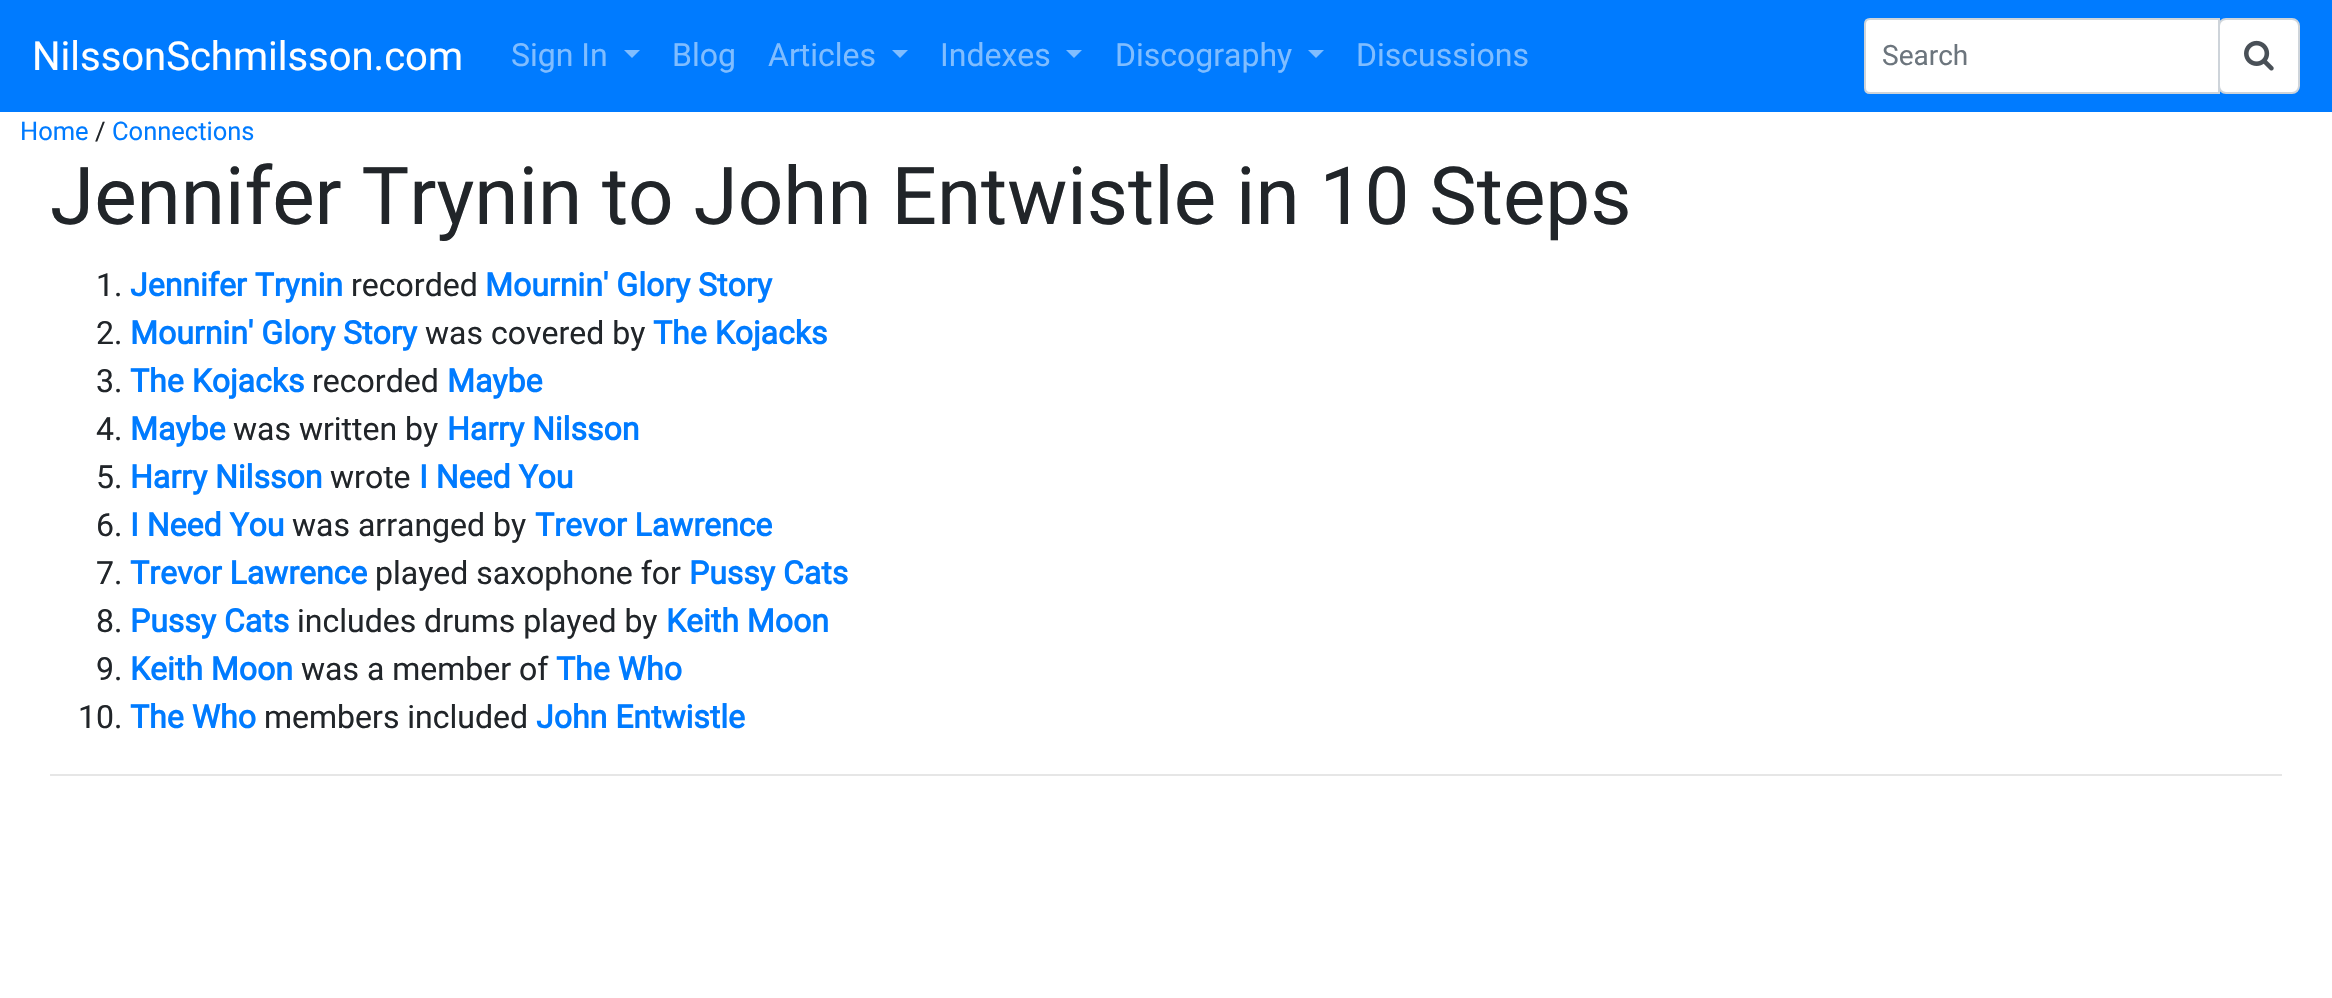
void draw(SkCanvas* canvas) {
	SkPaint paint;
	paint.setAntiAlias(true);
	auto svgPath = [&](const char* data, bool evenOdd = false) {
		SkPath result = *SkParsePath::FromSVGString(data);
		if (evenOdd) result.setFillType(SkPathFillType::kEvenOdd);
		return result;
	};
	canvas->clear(0xffffffff);
	paint.setColor(0xff007bff);
	canvas->drawRect(SkRect::MakeXYWH(0, 0, 2332, 112), paint);
	SkFont f1(fontMgr->matchFamilyStyle("Roboto", SkFontStyle::Normal()), 40);
	f1.setSubpixel(true);
	paint.setColor(0xffffffff);
	canvas->drawString("NilssonSchmilsson.com", 32, 70, f1, paint);
	SkFont f2(fontMgr->matchFamilyStyle("Roboto", SkFontStyle::Normal()), 32);
	f2.setSubpixel(true);
	paint.setColor(0xff80bdff);
	canvas->drawString("Sign In", 511, 66, f2, paint);
	canvas->drawPath(svgPath("M624 50H640L632 58Z"), paint);
	canvas->drawString("Blog", 672, 66, f2, paint);
	canvas->drawString("Articles", 768, 66, f2, paint);
	canvas->drawPath(svgPath("M892 50H908L900 58Z"), paint);
	canvas->drawString("Indexes", 940, 66, f2, paint);
	canvas->drawPath(svgPath("M1066 50H1082L1074 58Z"), paint);
	canvas->drawString("Discography", 1115, 66, f2, paint);
	canvas->drawPath(svgPath("M1308 50H1324L1316 58Z"), paint);
	canvas->drawString("Discussions", 1356, 66, f2, paint);
	paint.setColor(0xffffffff);
	canvas->drawRoundRect(SkRect::MakeXYWH(2219, 19, 80, 74), 7, 7, paint);
	paint.setStroke(true);
	paint.setStrokeWidth(2);
	paint.setColor(0xffced4da);
	canvas->drawRoundRect(SkRect::MakeXYWH(2219, 19, 80, 74), 7, 7, paint);
	paint.setStroke(false);
	paint.setColor(0xffffffff);
	canvas->drawPath(svgPath("M1870 19H2219V93H1870C1867 93 1865 91 1865 88V24C1865 21 1867 19 1870 19Z"), paint);
	paint.setStroke(true);
	paint.setColor(0xffced4da);
	canvas->drawPath(svgPath("M1870 19H2219V93H1870C1867 93 1865 91 1865 88V24C1865 21 1867 19 1870 19Z"), paint);
	SkFont f3(fontMgr->matchFamilyStyle("Roboto", SkFontStyle::Normal()), 28);
	f3.setSubpixel(true);
	paint.setStroke(false);
	paint.setColor(0xff6c757d);
	canvas->drawString("Search", 1882, 65, f3, paint);
	canvas->drawImageRect(SkImages::DeferredFromEncodedData(SkData::MakeFromFileName("img1.png")), SkRect::MakeXYWH(2244, 40, 30, 31), SkSamplingOptions());
	SkFont f4(fontMgr->matchFamilyStyle("Roboto", SkFontStyle::Normal()), 25.5);
	f4.setSubpixel(true);
	paint.setColor(0xff007bff);
	canvas->drawString("Home", 20, 140, f4, paint);
	paint.setColor(0xff212529);
	canvas->drawString("/", 95, 140, f4, paint);
	paint.setColor(0xff007bff);
	canvas->drawString("Connections", 112, 140, f4, paint);
	SkFont f5(fontMgr->matchFamilyStyle("Roboto", SkFontStyle::Normal()), 80);
	f5.setSubpixel(true);
	paint.setColor(0xff212529);
	canvas->drawString("Jennifer Trynin to John Entwistle in 10 Steps", 50, 224, f5, paint);
	canvas->drawString("1.", 96, 296, f2, paint);
	SkFont f6(fontMgr->matchFamilyStyle("Roboto", SkFontStyle::Bold()), 32);
	f6.setSubpixel(true);
	paint.setColor(0xff007bff);
	canvas->drawString("Jennifer Trynin", 130, 296, f6, paint);
	paint.setColor(0xff212529);
	canvas->drawString("recorded", 351, 296, f2, paint);
	paint.setColor(0xff007bff);
	canvas->drawString("Mournin' Glory Story", 485, 296, f6, paint);
	paint.setColor(0xff212529);
	canvas->drawString("2.", 96, 344, f2, paint);
	paint.setColor(0xff007bff);
	canvas->drawString("Mournin' Glory Story", 130, 344, f6, paint);
	paint.setColor(0xff212529);
	canvas->drawString("was covered by", 425, 344, f2, paint);
	paint.setColor(0xff007bff);
	canvas->drawString("The Kojacks", 653, 344, f6, paint);
	paint.setColor(0xff212529);
	canvas->drawString("3.", 96, 392, f2, paint);
	paint.setColor(0xff007bff);
	canvas->drawString("The Kojacks", 130, 392, f6, paint);
	paint.setColor(0xff212529);
	canvas->drawString("recorded", 312, 392, f2, paint);
	paint.setColor(0xff007bff);
	canvas->drawString("Maybe", 447, 392, f6, paint);
	paint.setColor(0xff212529);
	canvas->drawString("4.", 96, 440, f2, paint);
	paint.setColor(0xff007bff);
	canvas->drawString("Maybe", 130, 440, f6, paint);
	paint.setColor(0xff212529);
	canvas->drawString("was written by", 233, 440, f2, paint);
	paint.setColor(0xff007bff);
	canvas->drawString("Harry Nilsson", 447, 440, f6, paint);
	paint.setColor(0xff212529);
	canvas->drawString("5.", 96, 488, f2, paint);
	paint.setColor(0xff007bff);
	canvas->drawString("Harry Nilsson", 130, 488, f6, paint);
	paint.setColor(0xff212529);
	canvas->drawString("wrote", 330, 488, f2, paint);
	paint.setColor(0xff007bff);
	canvas->drawString("I Need You", 419, 488, f6, paint);
	paint.setColor(0xff212529);
	canvas->drawString("6.", 96, 536, f2, paint);
	paint.setColor(0xff007bff);
	canvas->drawString("I Need You", 130, 536, f6, paint);
	paint.setColor(0xff212529);
	canvas->drawString("was arranged by", 292, 536, f2, paint);
	paint.setColor(0xff007bff);
	canvas->drawString("Trevor Lawrence", 535, 536, f6, paint);
	paint.setColor(0xff212529);
	canvas->drawString("7.", 96, 584, f2, paint);
	paint.setColor(0xff007bff);
	canvas->drawString("Trevor Lawrence", 130, 584, f6, paint);
	paint.setColor(0xff212529);
	canvas->drawString("played saxophone for", 375, 584, f2, paint);
	paint.setColor(0xff007bff);
	canvas->drawString("Pussy Cats", 689, 584, f6, paint);
	paint.setColor(0xff212529);
	canvas->drawString("8.", 96, 632, f2, paint);
	paint.setColor(0xff007bff);
	canvas->drawString("Pussy Cats", 130, 632, f6, paint);
	paint.setColor(0xff212529);
	canvas->drawString("includes drums played by", 297, 632, f2, paint);
	paint.setColor(0xff007bff);
	canvas->drawString("Keith Moon", 666, 632, f6, paint);
	paint.setColor(0xff212529);
	canvas->drawString("9.", 96, 680, f2, paint);
	paint.setColor(0xff007bff);
	canvas->drawString("Keith Moon", 130, 680, f6, paint);
	paint.setColor(0xff212529);
	canvas->drawString("was a member of", 301, 680, f2, paint);
	paint.setColor(0xff007bff);
	canvas->drawString("The Who", 556, 680, f6, paint);
	paint.setColor(0xff212529);
	canvas->drawString("10.", 78, 728, f2, paint);
	paint.setColor(0xff007bff);
	canvas->drawString("The Who", 130, 728, f6, paint);
	paint.setColor(0xff212529);
	canvas->drawString("members included", 264, 728, f2, paint);
	paint.setColor(0xff007bff);
	canvas->drawString("John Entwistle", 536, 728, f6, paint);
	paint.setColor(0xffe6e6e6);
	canvas->drawRect(SkRect::MakeXYWH(50, 774, 2232, 2), paint);
}
